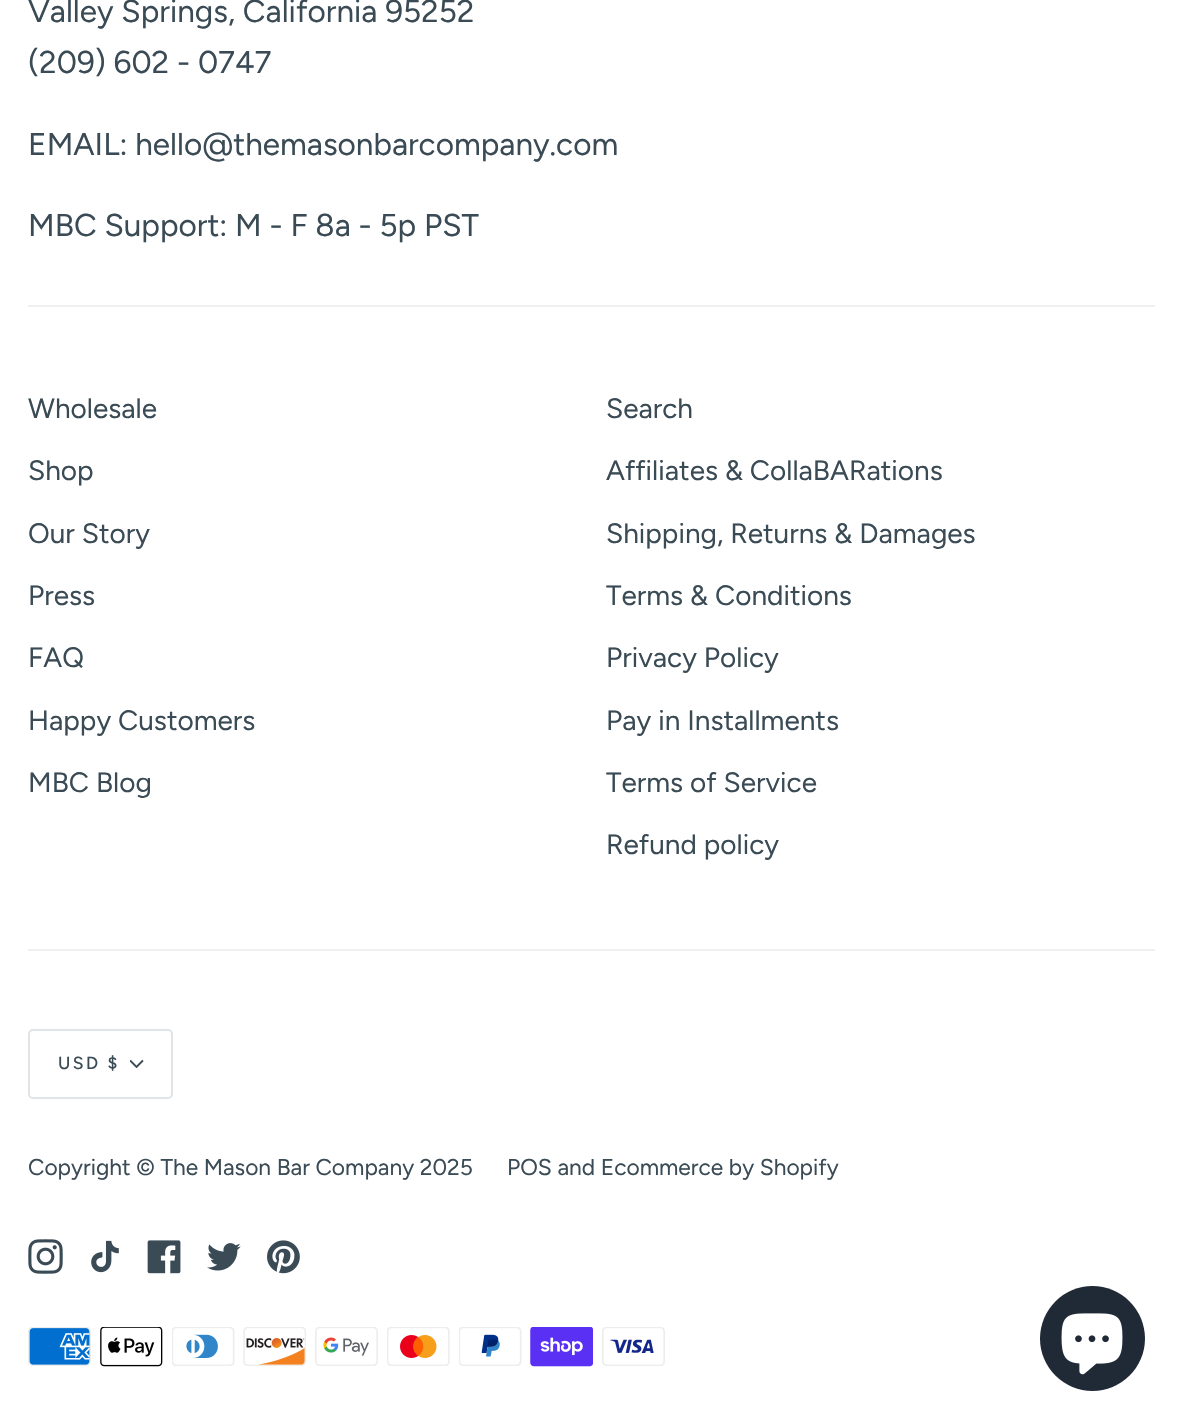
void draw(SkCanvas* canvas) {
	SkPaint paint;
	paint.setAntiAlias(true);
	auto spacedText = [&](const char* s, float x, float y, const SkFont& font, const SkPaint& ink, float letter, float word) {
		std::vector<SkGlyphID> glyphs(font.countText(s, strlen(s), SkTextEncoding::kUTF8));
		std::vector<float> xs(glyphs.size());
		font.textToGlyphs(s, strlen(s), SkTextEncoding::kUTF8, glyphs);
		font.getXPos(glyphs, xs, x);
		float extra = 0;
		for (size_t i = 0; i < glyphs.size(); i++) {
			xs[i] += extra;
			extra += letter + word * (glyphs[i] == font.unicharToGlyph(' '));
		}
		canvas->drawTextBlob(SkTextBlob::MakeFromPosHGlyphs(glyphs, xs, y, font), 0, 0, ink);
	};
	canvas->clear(0xffffffff);
	SkFont f1(fontMgr->matchFamilyStyle("Figtree", SkFontStyle::Normal()), 31.5);
	f1.setSubpixel(true);
	paint.setColor(0xff3a4b55);
	canvas->drawString("Valley Springs, California 95252", 28, 22, f1, paint);
	canvas->drawString("(209) 602 - 0747", 28, 73, f1, paint);
	canvas->drawString("EMAIL: hello@themasonbarcompany.com", 28, 155, f1, paint);
	canvas->drawString("MBC Support: M - F 8a - 5p PST", 28, 236, f1, paint);
	paint.setColor(0xffeff1f1);
	canvas->drawRect(SkRect::MakeXYWH(28, 305, 1127, 2), paint);
	SkFont f2(fontMgr->matchFamilyStyle("Figtree", SkFontStyle::Normal()), 28);
	f2.setSubpixel(true);
	paint.setColor(0xff3a4b55);
	canvas->drawString("Wholesale", 28, 418, f2, paint);
	canvas->drawString("Shop", 28, 480, f2, paint);
	canvas->drawString("Our Story", 28, 543, f2, paint);
	canvas->drawString("Press", 28, 605, f2, paint);
	canvas->drawString("FAQ", 28, 667, f2, paint);
	canvas->drawString("Happy Customers", 28, 730, f2, paint);
	canvas->drawString("MBC Blog", 28, 792, f2, paint);
	canvas->drawString("Search", 606, 418, f2, paint);
	canvas->drawString("Affiliates & CollaBARations", 606, 480, f2, paint);
	canvas->drawString("Shipping, Returns & Damages", 606, 543, f2, paint);
	canvas->drawString("Terms & Conditions", 606, 605, f2, paint);
	canvas->drawString("Privacy Policy", 606, 667, f2, paint);
	canvas->drawString("Pay in Installments", 606, 730, f2, paint);
	canvas->drawString("Terms of Service", 606, 792, f2, paint);
	canvas->drawString("Refund policy", 606, 854, f2, paint);
	paint.setColor(0xffeff1f1);
	canvas->drawRect(SkRect::MakeXYWH(28, 949, 1127, 2), paint);
	paint.setStroke(true);
	paint.setStrokeWidth(2);
	paint.setColor(0xffe1e4e6);
	canvas->drawRoundRect(SkRect::MakeXYWH(29, 1030, 143, 68), 4, 4, paint);
	SkFont f3(fontMgr->matchFamilyStyle("Figtree", SkFontStyle(500, SkFontStyle::kNormal_Width, SkFontStyle::kUpright_Slant)), 17.5);
	f3.setSubpixel(true);
	paint.setStroke(false);
	paint.setColor(0xff3a4b55);
	spacedText("USD $", 58, 1069, f3, paint, 2.5, 0);
	canvas->drawImageRect(SkImages::DeferredFromEncodedData(SkData::MakeFromFileName("img1.png")), SkRect::MakeXYWH(130, 1059, 14, 10), SkSamplingOptions());
	SkFont f4(fontMgr->matchFamilyStyle("Figtree", SkFontStyle::Normal()), 22.75);
	f4.setSubpixel(true);
	canvas->drawString("Copyright © The Mason Bar Company 2025", 28, 1175, f4, paint);
	canvas->drawString("POS and Ecommerce by Shopify", 507, 1175, f4, paint);
	canvas->drawImageRect(SkImages::DeferredFromEncodedData(SkData::MakeFromFileName("img2.png")), SkRect::MakeXYWH(28, 1239, 35, 35), SkSamplingOptions());
	canvas->drawImageRect(SkImages::DeferredFromEncodedData(SkData::MakeFromFileName("img3.png")), SkRect::MakeXYWH(91, 1240, 28, 33), SkSamplingOptions());
	canvas->drawImageRect(SkImages::DeferredFromEncodedData(SkData::MakeFromFileName("img4.png")), SkRect::MakeXYWH(147, 1240, 34, 34), SkSamplingOptions());
	canvas->drawImageRect(SkImages::DeferredFromEncodedData(SkData::MakeFromFileName("img5.png")), SkRect::MakeXYWH(207, 1243, 34, 28), SkSamplingOptions());
	canvas->drawImageRect(SkImages::DeferredFromEncodedData(SkData::MakeFromFileName("img6.png")), SkRect::MakeXYWH(267, 1240, 33, 34), SkSamplingOptions());
	canvas->drawImageRect(SkImages::DeferredFromEncodedData(SkData::MakeFromFileName("img7.png")), SkRect::MakeXYWH(28, 1327, 63, 39), SkSamplingOptions());
	canvas->drawImageRect(SkImages::DeferredFromEncodedData(SkData::MakeFromFileName("img8.png")), SkRect::MakeXYWH(100, 1327, 63, 40), SkSamplingOptions());
	canvas->drawImageRect(SkImages::DeferredFromEncodedData(SkData::MakeFromFileName("img9.png")), SkRect::MakeXYWH(172, 1327, 63, 39), SkSamplingOptions());
	canvas->drawImageRect(SkImages::DeferredFromEncodedData(SkData::MakeFromFileName("img10.png")), SkRect::MakeXYWH(243, 1327, 63, 39), SkSamplingOptions());
	canvas->drawImageRect(SkImages::DeferredFromEncodedData(SkData::MakeFromFileName("img11.png")), SkRect::MakeXYWH(315, 1327, 63, 39), SkSamplingOptions());
	canvas->drawImageRect(SkImages::DeferredFromEncodedData(SkData::MakeFromFileName("img12.png")), SkRect::MakeXYWH(387, 1327, 63, 39), SkSamplingOptions());
	canvas->drawImageRect(SkImages::DeferredFromEncodedData(SkData::MakeFromFileName("img13.png")), SkRect::MakeXYWH(459, 1327, 63, 39), SkSamplingOptions());
	canvas->drawImageRect(SkImages::DeferredFromEncodedData(SkData::MakeFromFileName("img14.png")), SkRect::MakeXYWH(530, 1327, 63, 40), SkSamplingOptions());
	canvas->drawImageRect(SkImages::DeferredFromEncodedData(SkData::MakeFromFileName("img15.png")), SkRect::MakeXYWH(602, 1327, 63, 39), SkSamplingOptions());
	paint.setColor(0xff202a36);
	canvas->drawCircle(1092.5, 1338.5, 52.5, paint);
	canvas->drawImageRect(SkImages::DeferredFromEncodedData(SkData::MakeFromFileName("img16.png")), SkRect::MakeXYWH(1061, 1313, 62, 62), SkSamplingOptions());
}
